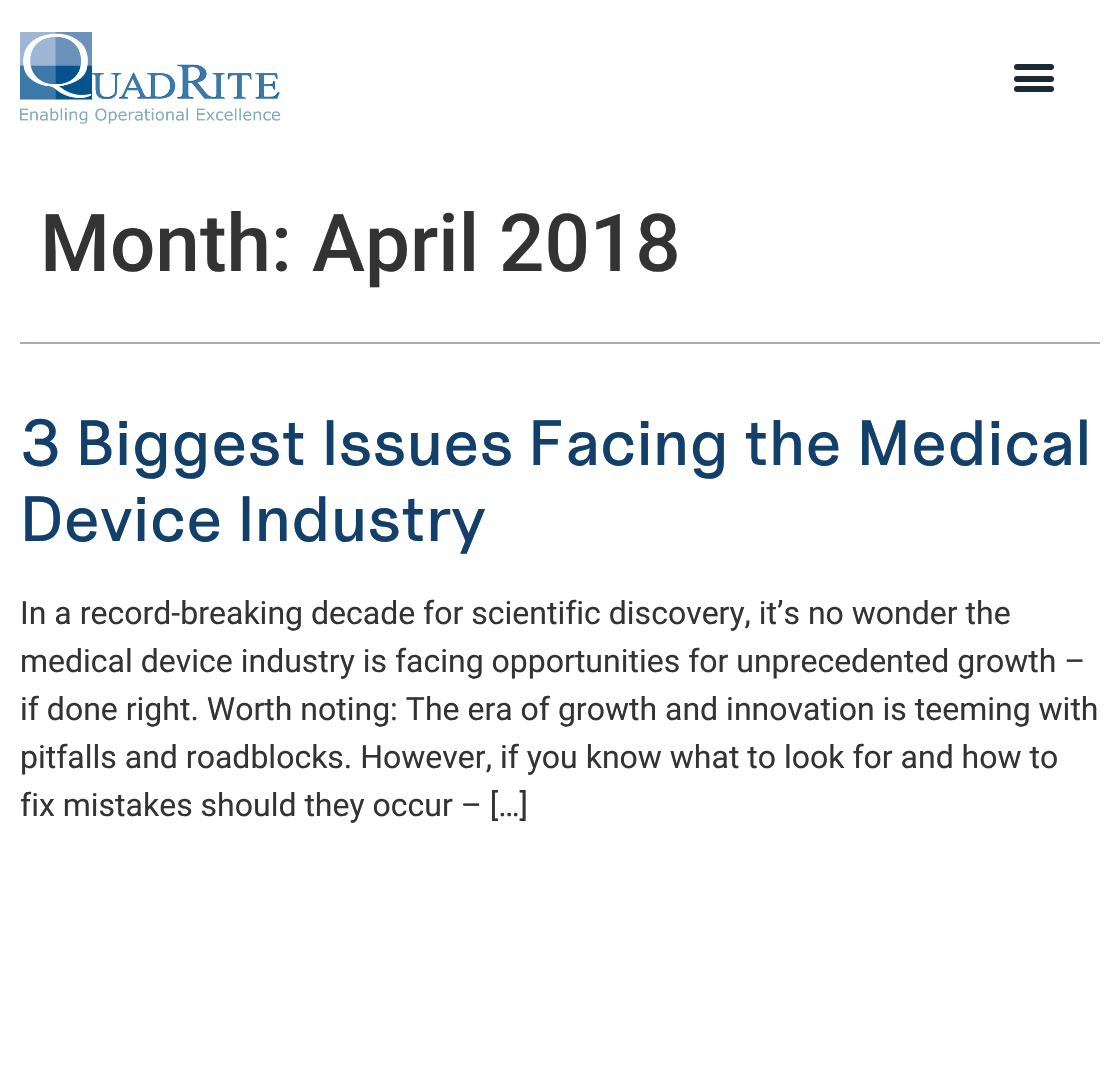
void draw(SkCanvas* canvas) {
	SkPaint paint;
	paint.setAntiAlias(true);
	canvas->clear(0xffffffff);
	canvas->drawImageRect(SkImages::DeferredFromEncodedData(SkData::MakeFromFileName("img1.png")), SkRect::MakeXYWH(20, 32, 260, 92), SkSamplingOptions());
	paint.setColor(0xff1c2b33);
	canvas->drawRoundRect(SkRect::MakeXYWH(1014, 76, 40, 6), 3, 3, paint);
	canvas->drawRoundRect(SkRect::MakeXYWH(1014, 64, 40, 6), 3, 3, paint);
	canvas->drawRoundRect(SkRect::MakeXYWH(1014, 86, 40, 6), 3, 3, paint);
	paint.setColor(0xffa8abb3);
	canvas->drawRect(SkRect::MakeXYWH(20, 342, 1080, 2), paint);
	SkFont f1(fontMgr->matchFamilyStyle("Roboto", SkFontStyle(500, SkFontStyle::kNormal_Width, SkFontStyle::kUpright_Slant)), 80);
	f1.setSubpixel(true);
	paint.setColor(0xff333333);
	canvas->drawString("Month: April 2018", 40, 271, f1, paint);
	SkFont f2(fontMgr->matchFamilyStyle("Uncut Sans", SkFontStyle(500, SkFontStyle::kNormal_Width, SkFontStyle::kUpright_Slant)), 64);
	f2.setSubpixel(true);
	paint.setColor(0xff12406b);
	canvas->drawString("3 Biggest Issues Facing the Medical", 20, 465, f2, paint);
	canvas->drawString("Device Industry", 20, 541, f2, paint);
	SkFont f3(fontMgr->matchFamilyStyle("Roboto", SkFontStyle::Normal()), 32);
	f3.setSubpixel(true);
	paint.setColor(0xff333333);
	canvas->drawString("In a record-breaking decade for scientific discovery, it’s no wonder the", 20, 624, f3, paint);
	canvas->drawString("medical device industry is facing opportunities for unprecedented growth –", 20, 672, f3, paint);
	canvas->drawString("if done right. Worth noting: The era of growth and innovation is teeming with", 20, 720, f3, paint);
	canvas->drawString("pitfalls and roadblocks. However, if you know what to look for and how to", 20, 768, f3, paint);
	canvas->drawString("fix mistakes should they occur – […]", 20, 816, f3, paint);
}
